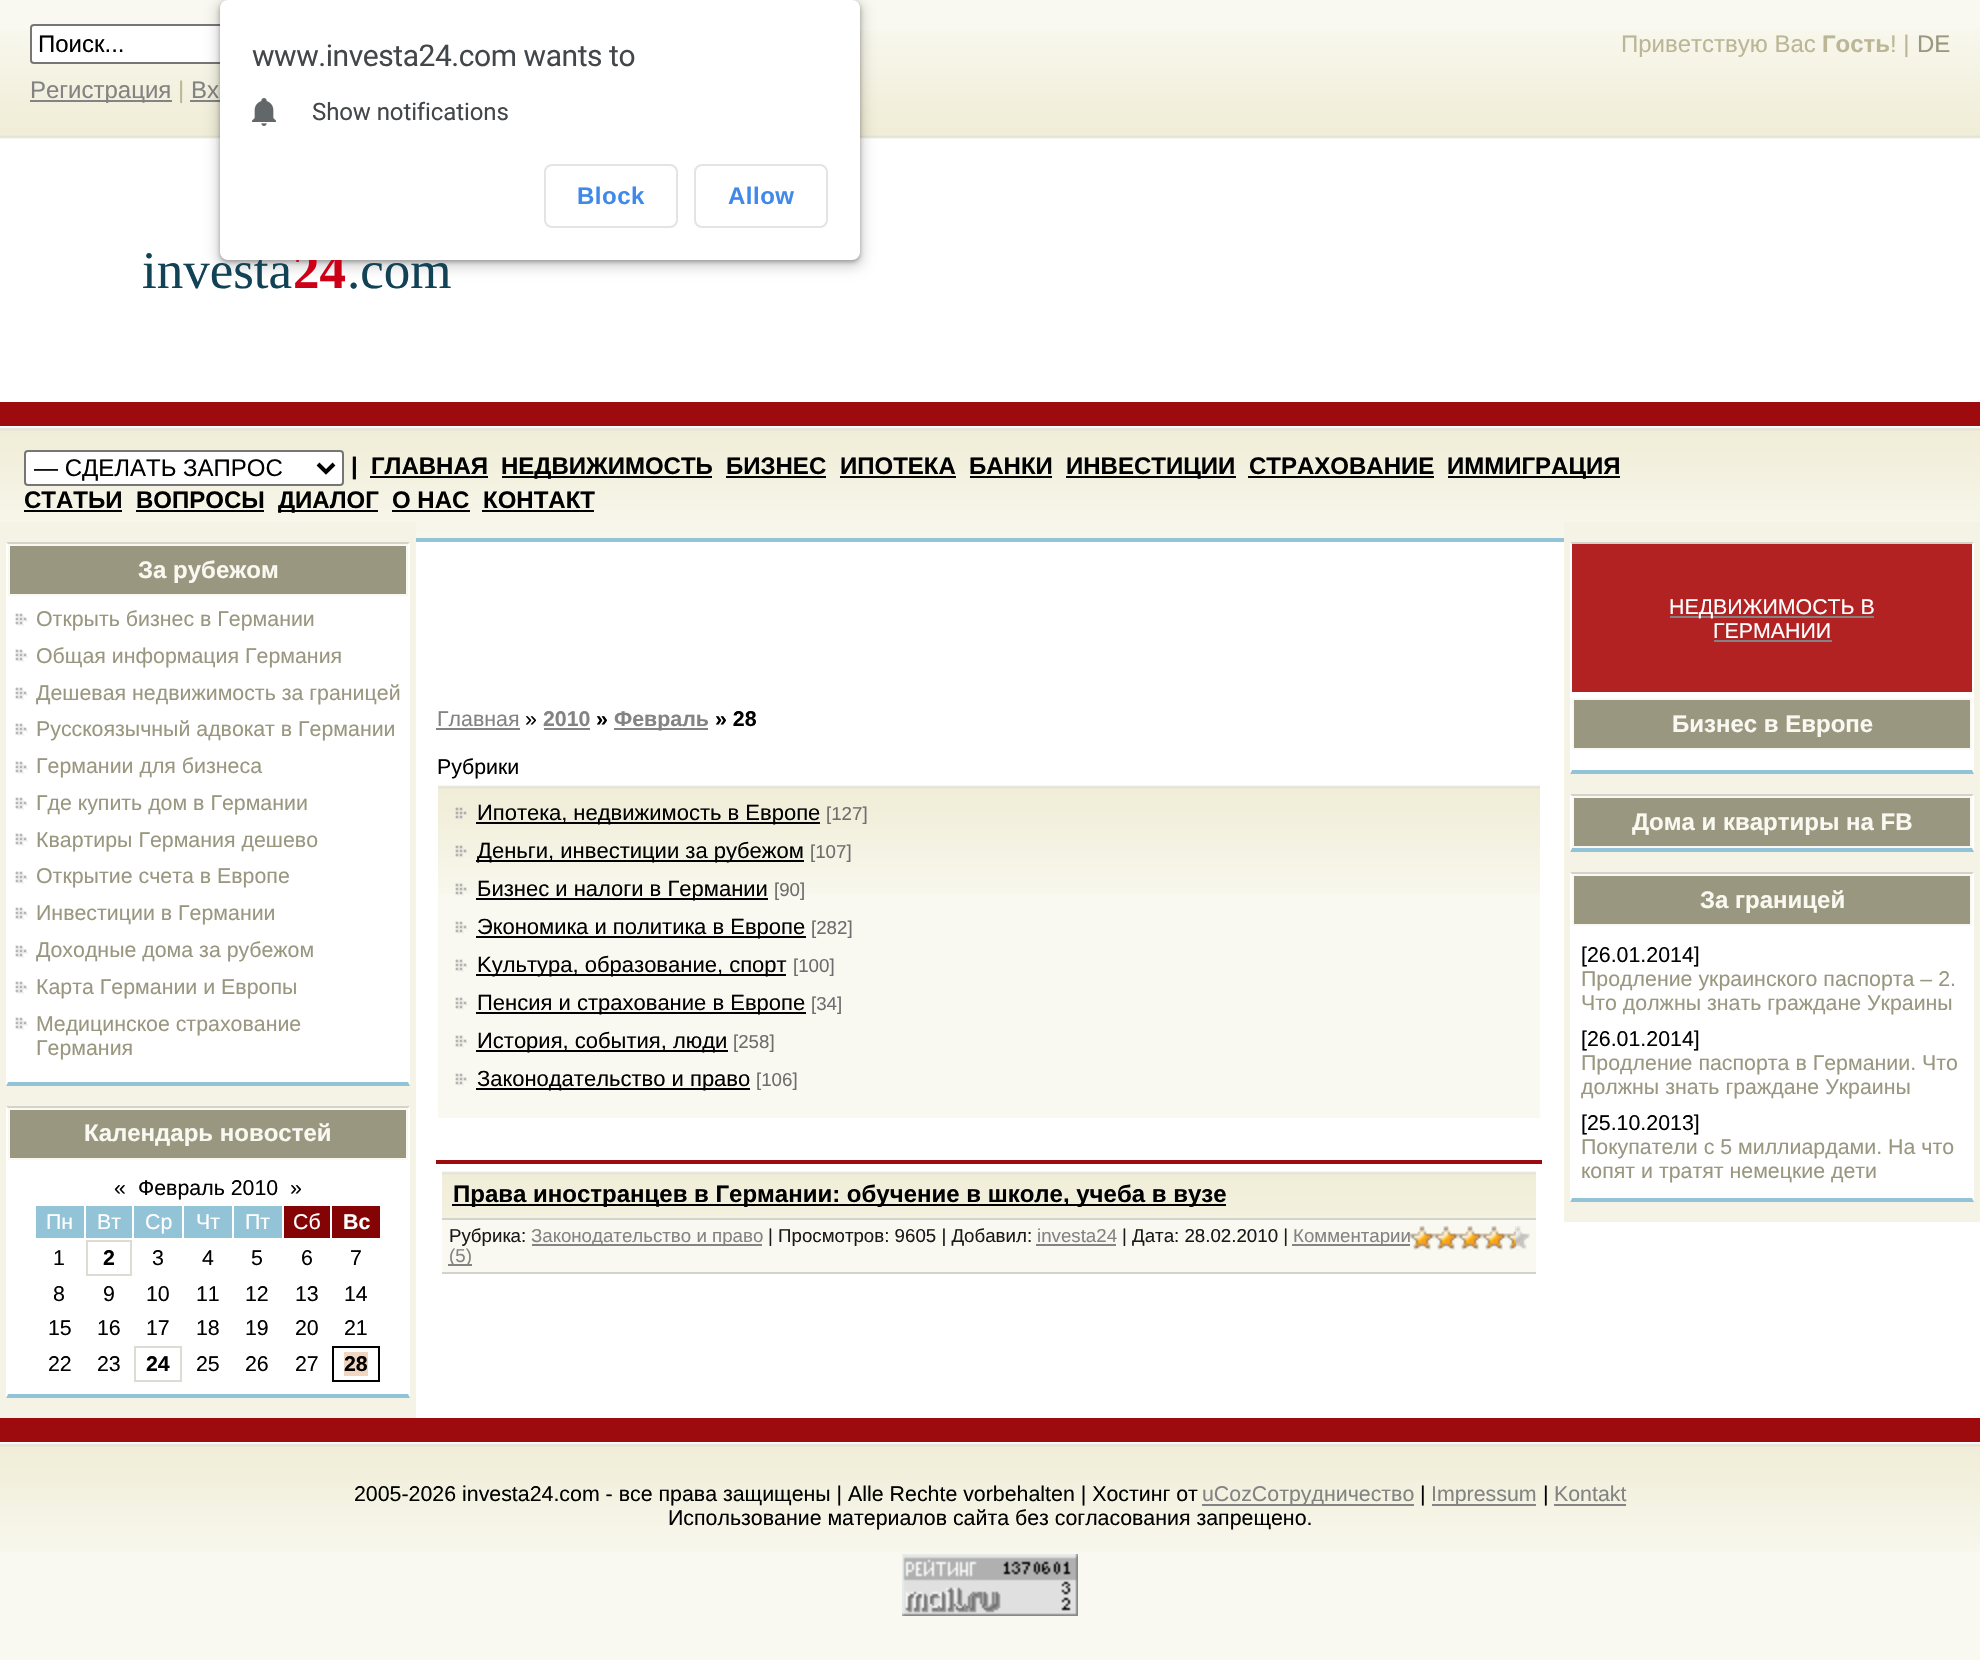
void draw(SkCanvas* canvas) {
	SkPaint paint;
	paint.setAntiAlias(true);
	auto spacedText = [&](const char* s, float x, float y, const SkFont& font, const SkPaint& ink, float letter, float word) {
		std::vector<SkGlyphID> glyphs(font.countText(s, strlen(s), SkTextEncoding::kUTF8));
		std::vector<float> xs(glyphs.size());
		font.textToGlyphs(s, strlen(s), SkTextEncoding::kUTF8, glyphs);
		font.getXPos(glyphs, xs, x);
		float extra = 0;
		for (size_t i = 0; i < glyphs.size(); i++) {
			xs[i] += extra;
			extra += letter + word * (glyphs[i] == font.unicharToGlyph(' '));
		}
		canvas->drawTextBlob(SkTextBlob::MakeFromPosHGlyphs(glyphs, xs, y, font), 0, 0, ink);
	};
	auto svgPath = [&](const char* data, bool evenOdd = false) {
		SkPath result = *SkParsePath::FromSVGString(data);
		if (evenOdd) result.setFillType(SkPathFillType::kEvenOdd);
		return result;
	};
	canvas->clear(0xffffffff);
	paint.setColor(0xfffaf9f1);
	canvas->drawRect(SkRect::MakeXYWH(0, 0, 1980, 30), paint);
	canvas->drawImageRect(SkImages::DeferredFromEncodedData(SkData::MakeFromFileName("img1.png")), SkRect::MakeXYWH(0, 30, 1980, 110), SkSamplingOptions());
	paint.setColor(0xffffffff);
	canvas->drawRoundRect(SkRect::MakeXYWH(31, 25, 248, 38), 3, 3, paint);
	paint.setStroke(true);
	paint.setStrokeWidth(2);
	paint.setColor(0xff767676);
	canvas->drawRoundRect(SkRect::MakeXYWH(31, 25, 248, 38), 3, 3, paint);
	SkFont f1(fontMgr->matchFamilyStyle("Liberation Sans", SkFontStyle::Normal()), 24);
	f1.setSubpixel(true);
	paint.setStroke(false);
	paint.setColor(0xff000000);
	canvas->drawString("Поиск...", 38, 52, f1, paint);
	paint.setColor(0xffbbb696);
	canvas->drawString("Приветствую Вас", 1621, 52, f1, paint);
	SkFont f2(fontMgr->matchFamilyStyle("Liberation Sans", SkFontStyle::Bold()), 24);
	f2.setSubpixel(true);
	canvas->drawString("Гость", 1822, 52, f2, paint);
	canvas->drawString("! |", 1890, 52, f1, paint);
	paint.setColor(0xff99977f);
	canvas->drawString("DE", 1917, 52, f1, paint);
	paint.setColor(0xff838383);
	canvas->drawRect(SkRect::MakeXYWH(30, 100, 142, 2), paint);
	canvas->drawString("Регистрация", 30, 98, f1, paint);
	paint.setColor(0xffbbb696);
	canvas->drawString("|", 178, 98, f1, paint);
	paint.setColor(0xff838383);
	canvas->drawString("Вх", 191, 98, f1, paint);
	canvas->drawRect(SkRect::MakeXYWH(190, 100, 30, 2), paint);
	paint.setColor(0x26000000);
	paint.setMaskFilter(SkMaskFilter::MakeBlur(kNormal_SkBlurStyle, 6));
	canvas->drawRoundRect(SkRect::MakeXYWH(216, 0, 648, 268), 12, 12, paint);
	paint.setMaskFilter(nullptr);
	paint.setColor(0x4d000000);
	paint.setMaskFilter(SkMaskFilter::MakeBlur(kNormal_SkBlurStyle, 2));
	canvas->drawRoundRect(SkRect::MakeXYWH(220, 2, 640, 260), 8, 8, paint);
	paint.setMaskFilter(nullptr);
	SkFont f3(fontMgr->matchFamilyStyle("Liberation Serif", SkFontStyle::Normal()), 53);
	f3.setSubpixel(true);
	paint.setColor(0xff124256);
	canvas->drawString("investa", 142, 288, f3, paint);
	SkFont f4(fontMgr->matchFamilyStyle("Liberation Serif", SkFontStyle::Bold()), 53);
	f4.setSubpixel(true);
	paint.setColor(0xffcc0017);
	canvas->drawString("24", 293, 288, f4, paint);
	paint.setColor(0xffffffff);
	canvas->drawRoundRect(SkRect::MakeXYWH(220, 0, 640, 260), 8, 8, paint);
	SkFont f5(fontMgr->matchFamilyStyle("Roboto", SkFontStyle::Normal()), 30);
	f5.setSubpixel(true);
	paint.setColor(0xff434749);
	spacedText("www.investa24.com wants to", 252, 66, f5, paint, -0.45, 0);
	canvas->drawImageRect(SkImages::DeferredFromEncodedData(SkData::MakeFromFileName("img2.png")), SkRect::MakeXYWH(252, 98, 24, 28), SkSamplingOptions());
	SkFont f6(fontMgr->matchFamilyStyle("Roboto", SkFontStyle::Normal()), 24);
	f6.setSubpixel(true);
	spacedText("Show notifications", 312, 120, f6, paint, -0.1, 0);
	paint.setStroke(true);
	paint.setColor(0xffe4e4e4);
	canvas->drawRoundRect(SkRect::MakeXYWH(545, 165, 132, 62), 7, 7, paint);
	paint.setStroke(false);
	paint.setColor(0xff4089e8);
	spacedText("Block", 577, 204, f2, paint, 0.5, 0);
	paint.setStroke(true);
	paint.setColor(0xffe4e4e4);
	canvas->drawRoundRect(SkRect::MakeXYWH(695, 165, 132, 62), 7, 7, paint);
	paint.setStroke(false);
	paint.setColor(0xff4089e8);
	spacedText("Allow", 728, 204, f2, paint, 0.5, 0);
	paint.setColor(0xff124256);
	canvas->drawString(".com", 347, 288, f3, paint);
	paint.setColor(0xff9e0b0f);
	canvas->drawRect(SkRect::MakeXYWH(0, 402, 1980, 24), paint);
	canvas->drawImageRect(SkImages::DeferredFromEncodedData(SkData::MakeFromFileName("img3.png")), SkRect::MakeXYWH(0, 427, 1980, 111), SkSamplingOptions());
	paint.setColor(0xff93c3d7);
	canvas->drawRect(SkRect::MakeXYWH(416, 538, 1148, 4), paint);
	paint.setColor(0xffffffff);
	canvas->drawRoundRect(SkRect::MakeXYWH(25, 451, 318, 34), 3, 3, paint);
	paint.setStroke(true);
	paint.setColor(0xff767676);
	canvas->drawRoundRect(SkRect::MakeXYWH(25, 451, 318, 34), 3, 3, paint);
	paint.setStrokeWidth(4);
	paint.setColor(0xff000000);
	canvas->drawPath(svgPath("M318 464L326 472L334 464"), paint);
	paint.setStroke(false);
	canvas->drawString("— СДЕЛАТЬ ЗАПРОС", 34, 476, f1, paint);
	canvas->drawString("|", 351, 474, f2, paint);
	canvas->drawString("ГЛАВНАЯ", 371, 474, f2, paint);
	canvas->drawRect(SkRect::MakeXYWH(370, 476, 118, 2), paint);
	canvas->drawRect(SkRect::MakeXYWH(502, 476, 210, 2), paint);
	canvas->drawString("НЕДВИЖИМОСТЬ", 501, 474, f2, paint);
	canvas->drawString("БИЗНЕС", 726, 474, f2, paint);
	canvas->drawRect(SkRect::MakeXYWH(726, 476, 100, 2), paint);
	canvas->drawString("ИПОТЕКА", 840, 474, f2, paint);
	canvas->drawRect(SkRect::MakeXYWH(840, 476, 116, 2), paint);
	canvas->drawString("БАНКИ", 969, 474, f2, paint);
	canvas->drawRect(SkRect::MakeXYWH(970, 476, 82, 2), paint);
	canvas->drawRect(SkRect::MakeXYWH(1066, 476, 170, 2), paint);
	canvas->drawString("ИНВЕСТИЦИИ", 1066, 474, f2, paint);
	canvas->drawString("СТРАХОВАНИЕ", 1249, 474, f2, paint);
	canvas->drawRect(SkRect::MakeXYWH(1248, 476, 186, 2), paint);
	canvas->drawRect(SkRect::MakeXYWH(1448, 476, 172, 2), paint);
	canvas->drawString("ИММИГРАЦИЯ", 1447, 474, f2, paint);
	canvas->drawString("СТАТЬИ", 24, 508, f2, paint);
	canvas->drawRect(SkRect::MakeXYWH(24, 510, 98, 2), paint);
	canvas->drawString("ВОПРОСЫ", 136, 508, f2, paint);
	canvas->drawRect(SkRect::MakeXYWH(136, 510, 128, 2), paint);
	canvas->drawRect(SkRect::MakeXYWH(278, 510, 100, 2), paint);
	canvas->drawString("ДИАЛОГ", 278, 508, f2, paint);
	canvas->drawString("О НАС", 392, 508, f2, paint);
	canvas->drawRect(SkRect::MakeXYWH(392, 510, 78, 2), paint);
	canvas->drawString("КОНТАКТ", 483, 508, f2, paint);
	canvas->drawRect(SkRect::MakeXYWH(482, 510, 112, 2), paint);
	paint.setColor(0xfff5f3e5);
	canvas->drawRect(SkRect::MakeXYWH(0, 522, 416, 896), paint);
	paint.setColor(0xffffffff);
	canvas->drawRect(SkRect::MakeXYWH(8, 596, 400, 486), paint);
	paint.setColor(0xffd3d2cb);
	canvas->drawRect(SkRect::MakeXYWH(6, 542, 404, 2), paint);
	paint.setColor(0xffffffff);
	canvas->drawPath(svgPath("M410 542V1086L408 1082V544Z"), paint);
	paint.setColor(0xff93c3d7);
	canvas->drawPath(svgPath("M410 1086H6L8 1082H408Z"), paint);
	paint.setColor(0xffffffff);
	canvas->drawPath(svgPath("M6 1086V542L8 544V1082Z"), paint);
	paint.setColor(0xff99977f);
	canvas->drawRect(SkRect::MakeXYWH(9, 545, 398, 50), paint);
	paint.setStroke(true);
	paint.setStrokeWidth(2);
	paint.setColor(0xfffaf9f1);
	canvas->drawRect(SkRect::MakeXYWH(9, 545, 398, 50), paint);
	paint.setStroke(false);
	canvas->drawString("За рубежом", 138, 578, f2, paint);
	canvas->drawImageRect(SkImages::DeferredFromEncodedData(SkData::MakeFromFileName("img4.png")), SkRect::MakeXYWH(15, 613, 13, 13), SkSamplingOptions());
	SkFont f7(fontMgr->matchFamilyStyle("Liberation Sans", SkFontStyle::Normal()), 21.35);
	f7.setSubpixel(true);
	paint.setColor(0xff99977f);
	canvas->drawString("Открыть бизнес в Германии", 36, 626, f7, paint);
	canvas->drawImageRect(SkImages::DeferredFromEncodedData(SkData::MakeFromFileName("img4.png")), SkRect::MakeXYWH(15, 649, 13, 13), SkSamplingOptions());
	canvas->drawString("Общая информация Германия", 36, 663, f7, paint);
	canvas->drawImageRect(SkImages::DeferredFromEncodedData(SkData::MakeFromFileName("img4.png")), SkRect::MakeXYWH(15, 687, 13, 13), SkSamplingOptions());
	canvas->drawString("Дешевая недвижимость за границей", 36, 700, f7, paint);
	canvas->drawImageRect(SkImages::DeferredFromEncodedData(SkData::MakeFromFileName("img4.png")), SkRect::MakeXYWH(15, 723, 13, 13), SkSamplingOptions());
	canvas->drawString("Русскоязычный адвокат в Германии", 36, 736, f7, paint);
	canvas->drawImageRect(SkImages::DeferredFromEncodedData(SkData::MakeFromFileName("img4.png")), SkRect::MakeXYWH(15, 761, 13, 13), SkSamplingOptions());
	canvas->drawString("Германии для бизнеса", 36, 773, f7, paint);
	canvas->drawImageRect(SkImages::DeferredFromEncodedData(SkData::MakeFromFileName("img4.png")), SkRect::MakeXYWH(15, 797, 13, 13), SkSamplingOptions());
	canvas->drawString("Где купить дом в Германии", 36, 810, f7, paint);
	canvas->drawImageRect(SkImages::DeferredFromEncodedData(SkData::MakeFromFileName("img4.png")), SkRect::MakeXYWH(15, 833, 13, 13), SkSamplingOptions());
	canvas->drawString("Квартиры Германия дешево", 36, 847, f7, paint);
	canvas->drawImageRect(SkImages::DeferredFromEncodedData(SkData::MakeFromFileName("img4.png")), SkRect::MakeXYWH(15, 871, 13, 13), SkSamplingOptions());
	canvas->drawString("Открытие счета в Европе", 36, 883, f7, paint);
	canvas->drawImageRect(SkImages::DeferredFromEncodedData(SkData::MakeFromFileName("img4.png")), SkRect::MakeXYWH(15, 907, 13, 13), SkSamplingOptions());
	canvas->drawString("Инвестиции в Германии", 36, 920, f7, paint);
	canvas->drawImageRect(SkImages::DeferredFromEncodedData(SkData::MakeFromFileName("img4.png")), SkRect::MakeXYWH(15, 945, 13, 13), SkSamplingOptions());
	canvas->drawString("Доходные дома за рубежом", 36, 957, f7, paint);
	canvas->drawImageRect(SkImages::DeferredFromEncodedData(SkData::MakeFromFileName("img4.png")), SkRect::MakeXYWH(15, 981, 13, 13), SkSamplingOptions());
	canvas->drawString("Карта Германии и Европы", 36, 994, f7, paint);
	canvas->drawImageRect(SkImages::DeferredFromEncodedData(SkData::MakeFromFileName("img4.png")), SkRect::MakeXYWH(15, 1017, 13, 13), SkSamplingOptions());
	canvas->drawString("Медицинское страхование", 36, 1031, f7, paint);
	canvas->drawString("Германия", 36, 1055, f7, paint);
	paint.setColor(0xffffffff);
	canvas->drawRect(SkRect::MakeXYWH(8, 1160, 400, 234), paint);
	paint.setColor(0xffd3d2cb);
	canvas->drawRect(SkRect::MakeXYWH(6, 1106, 404, 2), paint);
	paint.setColor(0xffffffff);
	canvas->drawPath(svgPath("M410 1106V1398L408 1394V1108Z"), paint);
	paint.setColor(0xff93c3d7);
	canvas->drawPath(svgPath("M410 1398H6L8 1394H408Z"), paint);
	paint.setColor(0xffffffff);
	canvas->drawPath(svgPath("M6 1398V1106L8 1108V1394Z"), paint);
	paint.setColor(0xff99977f);
	canvas->drawRect(SkRect::MakeXYWH(9, 1109, 398, 50), paint);
	paint.setStroke(true);
	paint.setColor(0xfffaf9f1);
	canvas->drawRect(SkRect::MakeXYWH(9, 1109, 398, 50), paint);
	paint.setStroke(false);
	canvas->drawString("Календарь новостей", 84, 1141, f2, paint);
	paint.setColor(0xff000000);
	canvas->drawString("«", 114, 1195, f7, paint);
	canvas->drawString("Февраль 2010", 138, 1195, f7, paint);
	canvas->drawString("»", 290, 1195, f7, paint);
	paint.setColor(0xff93c3d7);
	canvas->drawRect(SkRect::MakeXYWH(36, 1206, 48, 32), paint);
	paint.setColor(0xffffffff);
	canvas->drawString("Пн", 46, 1229, f7, paint);
	paint.setColor(0xff93c3d7);
	canvas->drawRect(SkRect::MakeXYWH(86, 1206, 46, 32), paint);
	paint.setColor(0xffffffff);
	canvas->drawString("Вт", 97, 1229, f7, paint);
	paint.setColor(0xff93c3d7);
	canvas->drawRect(SkRect::MakeXYWH(134, 1206, 48, 32), paint);
	paint.setColor(0xffffffff);
	canvas->drawString("Ср", 145, 1229, f7, paint);
	paint.setColor(0xff93c3d7);
	canvas->drawRect(SkRect::MakeXYWH(184, 1206, 48, 32), paint);
	paint.setColor(0xffffffff);
	canvas->drawString("Чт", 196, 1229, f7, paint);
	paint.setColor(0xff93c3d7);
	canvas->drawRect(SkRect::MakeXYWH(234, 1206, 48, 32), paint);
	paint.setColor(0xffffffff);
	canvas->drawString("Пт", 245, 1229, f7, paint);
	paint.setColor(0xff840304);
	canvas->drawRect(SkRect::MakeXYWH(284, 1206, 46, 32), paint);
	paint.setColor(0xffffffff);
	canvas->drawString("Сб", 293, 1229, f7, paint);
	paint.setColor(0xff840304);
	canvas->drawRect(SkRect::MakeXYWH(332, 1206, 48, 32), paint);
	SkFont f8(fontMgr->matchFamilyStyle("Liberation Sans", SkFontStyle::Bold()), 21.35);
	f8.setSubpixel(true);
	paint.setColor(0xffffffff);
	canvas->drawString("Вс", 343, 1229, f8, paint);
	paint.setColor(0xff000000);
	canvas->drawString("1", 53, 1265, f7, paint);
	paint.setStroke(true);
	paint.setColor(0xffdcdbd4);
	canvas->drawRect(SkRect::MakeXYWH(87, 1241, 44, 34), paint);
	paint.setStroke(false);
	paint.setColor(0xff000000);
	canvas->drawString("2", 103, 1265, f8, paint);
	canvas->drawString("3", 152, 1265, f7, paint);
	canvas->drawString("4", 202, 1265, f7, paint);
	canvas->drawString("5", 251, 1265, f7, paint);
	canvas->drawString("6", 301, 1265, f7, paint);
	canvas->drawString("7", 350, 1265, f7, paint);
	canvas->drawString("8", 53, 1301, f7, paint);
	canvas->drawString("9", 103, 1301, f7, paint);
	canvas->drawString("10", 146, 1301, f7, paint);
	canvas->drawString("11", 196, 1301, f7, paint);
	canvas->drawString("12", 245, 1301, f7, paint);
	canvas->drawString("13", 295, 1301, f7, paint);
	canvas->drawString("14", 344, 1301, f7, paint);
	canvas->drawString("15", 48, 1335, f7, paint);
	canvas->drawString("16", 97, 1335, f7, paint);
	canvas->drawString("17", 146, 1335, f7, paint);
	canvas->drawString("18", 196, 1335, f7, paint);
	canvas->drawString("19", 245, 1335, f7, paint);
	canvas->drawString("20", 295, 1335, f7, paint);
	canvas->drawString("21", 344, 1335, f7, paint);
	canvas->drawString("22", 48, 1371, f7, paint);
	canvas->drawString("23", 97, 1371, f7, paint);
	paint.setStroke(true);
	paint.setColor(0xffdcdbd4);
	canvas->drawRect(SkRect::MakeXYWH(135, 1347, 46, 34), paint);
	paint.setStroke(false);
	paint.setColor(0xff000000);
	canvas->drawString("24", 146, 1371, f8, paint);
	canvas->drawString("25", 196, 1371, f7, paint);
	canvas->drawString("26", 245, 1371, f7, paint);
	canvas->drawString("27", 295, 1371, f7, paint);
	paint.setStroke(true);
	canvas->drawRect(SkRect::MakeXYWH(333, 1347, 46, 34), paint);
	paint.setStroke(false);
	paint.setColor(0xfff0d5c0);
	canvas->drawRect(SkRect::MakeXYWH(344, 1352, 24, 24), paint);
	paint.setColor(0xff000000);
	canvas->drawString("28", 344, 1371, f8, paint);
	paint.setColor(0xff838383);
	canvas->drawString("Главная", 437, 726, f7, paint);
	canvas->drawRect(SkRect::MakeXYWH(436, 728, 84, 2), paint);
	paint.setColor(0xff000000);
	canvas->drawString("»", 525, 726, f7, paint);
	paint.setColor(0xff838383);
	canvas->drawString("2010", 543, 726, f8, paint);
	canvas->drawRect(SkRect::MakeXYWH(544, 728, 46, 2), paint);
	paint.setColor(0xff000000);
	canvas->drawString("»", 596, 726, f8, paint);
	paint.setColor(0xff838383);
	canvas->drawRect(SkRect::MakeXYWH(614, 728, 94, 2), paint);
	canvas->drawString("Февраль", 614, 726, f8, paint);
	paint.setColor(0xff000000);
	canvas->drawString("» 28", 715, 726, f8, paint);
	canvas->drawString("Рубрики", 437, 774, f7, paint);
	paint.setColor(0xfffaf9f1);
	canvas->drawRect(SkRect::MakeXYWH(438, 894, 1102, 224), paint);
	canvas->drawImageRect(SkImages::DeferredFromEncodedData(SkData::MakeFromFileName("img5.png")), SkRect::MakeXYWH(438, 784, 1102, 110), SkSamplingOptions());
	canvas->drawImageRect(SkImages::DeferredFromEncodedData(SkData::MakeFromFileName("img6.png")), SkRect::MakeXYWH(455, 807, 13, 13), SkSamplingOptions());
	paint.setColor(0xff000000);
	canvas->drawRect(SkRect::MakeXYWH(476, 822, 344, 2), paint);
	SkFont f9(fontMgr->matchFamilyStyle("Liberation Sans", SkFontStyle::Normal()), 22);
	f9.setSubpixel(true);
	canvas->drawString("Ипотека, недвижимость в Европе", 477, 820, f9, paint);
	SkFont f10(fontMgr->matchFamilyStyle("Liberation Sans", SkFontStyle::Normal()), 18.7);
	f10.setSubpixel(true);
	paint.setColor(0xff6e6e6e);
	canvas->drawString("[127]", 826, 820, f10, paint);
	canvas->drawImageRect(SkImages::DeferredFromEncodedData(SkData::MakeFromFileName("img7.png")), SkRect::MakeXYWH(455, 845, 13, 13), SkSamplingOptions());
	paint.setColor(0xff000000);
	canvas->drawRect(SkRect::MakeXYWH(476, 860, 328, 2), paint);
	canvas->drawString("Деньги, инвестиции за рубежом", 477, 858, f9, paint);
	paint.setColor(0xff6e6e6e);
	canvas->drawString("[107]", 810, 858, f10, paint);
	canvas->drawImageRect(SkImages::DeferredFromEncodedData(SkData::MakeFromFileName("img8.png")), SkRect::MakeXYWH(455, 883, 13, 13), SkSamplingOptions());
	paint.setColor(0xff000000);
	canvas->drawRect(SkRect::MakeXYWH(476, 898, 292, 2), paint);
	canvas->drawString("Бизнес и налоги в Германии", 477, 896, f9, paint);
	paint.setColor(0xff6e6e6e);
	canvas->drawString("[90]", 774, 896, f10, paint);
	canvas->drawImageRect(SkImages::DeferredFromEncodedData(SkData::MakeFromFileName("img9.png")), SkRect::MakeXYWH(455, 921, 13, 13), SkSamplingOptions());
	paint.setColor(0xff000000);
	canvas->drawRect(SkRect::MakeXYWH(476, 936, 330, 2), paint);
	canvas->drawString("Экономика и политика в Европе", 477, 934, f9, paint);
	paint.setColor(0xff6e6e6e);
	canvas->drawString("[282]", 811, 934, f10, paint);
	canvas->drawImageRect(SkImages::DeferredFromEncodedData(SkData::MakeFromFileName("img9.png")), SkRect::MakeXYWH(455, 959, 13, 13), SkSamplingOptions());
	paint.setColor(0xff000000);
	canvas->drawRect(SkRect::MakeXYWH(476, 974, 310, 2), paint);
	canvas->drawString("Kультура, образование, спорт", 477, 972, f9, paint);
	paint.setColor(0xff6e6e6e);
	canvas->drawString("[100]", 793, 972, f10, paint);
	canvas->drawImageRect(SkImages::DeferredFromEncodedData(SkData::MakeFromFileName("img9.png")), SkRect::MakeXYWH(455, 997, 13, 13), SkSamplingOptions());
	paint.setColor(0xff000000);
	canvas->drawRect(SkRect::MakeXYWH(476, 1012, 330, 2), paint);
	canvas->drawString("Пенсия и страхование в Европе", 477, 1010, f9, paint);
	paint.setColor(0xff6e6e6e);
	canvas->drawString("[34]", 811, 1010, f10, paint);
	canvas->drawImageRect(SkImages::DeferredFromEncodedData(SkData::MakeFromFileName("img9.png")), SkRect::MakeXYWH(455, 1035, 13, 13), SkSamplingOptions());
	paint.setColor(0xff000000);
	canvas->drawRect(SkRect::MakeXYWH(476, 1050, 252, 2), paint);
	canvas->drawString("История, события, люди", 477, 1048, f9, paint);
	paint.setColor(0xff6e6e6e);
	canvas->drawString("[258]", 733, 1048, f10, paint);
	canvas->drawImageRect(SkImages::DeferredFromEncodedData(SkData::MakeFromFileName("img9.png")), SkRect::MakeXYWH(455, 1073, 13, 13), SkSamplingOptions());
	paint.setColor(0xff000000);
	canvas->drawRect(SkRect::MakeXYWH(476, 1088, 274, 2), paint);
	canvas->drawString("Законодательство и право", 477, 1086, f9, paint);
	paint.setColor(0xff6e6e6e);
	canvas->drawString("[106]", 756, 1086, f10, paint);
	paint.setColor(0xff9e0b0f);
	canvas->drawRect(SkRect::MakeXYWH(436, 1160, 1106, 4), paint);
	canvas->drawImageRect(SkImages::DeferredFromEncodedData(SkData::MakeFromFileName("img10.png")), SkRect::MakeXYWH(442, 1170, 1094, 48), SkSamplingOptions());
	paint.setColor(0xff000000);
	canvas->drawRect(SkRect::MakeXYWH(452, 1204, 774, 2), paint);
	canvas->drawString("Права иностранцев в Германии: обучение в школе, учеба в вузе", 453, 1202, f2, paint);
	paint.setColor(0xfffaf9f1);
	canvas->drawRect(SkRect::MakeXYWH(442, 1220, 1094, 52), paint);
	paint.setColor(0xffd3d2cb);
	canvas->drawRect(SkRect::MakeXYWH(442, 1218, 1094, 2), paint);
	canvas->drawRect(SkRect::MakeXYWH(442, 1272, 1094, 2), paint);
	paint.setColor(0xff1a1a1a);
	canvas->drawString("Рубрика:", 449, 1242, f10, paint);
	paint.setColor(0xff838383);
	canvas->drawRect(SkRect::MakeXYWH(532, 1244, 230, 2), paint);
	canvas->drawString("Законодательство и право", 531, 1242, f10, paint);
	paint.setColor(0xff1a1a1a);
	canvas->drawString("| Просмотров: 9605 | Добавил:", 768, 1242, f10, paint);
	paint.setColor(0xff838383);
	canvas->drawString("investa24", 1037, 1242, f10, paint);
	canvas->drawRect(SkRect::MakeXYWH(1036, 1244, 80, 2), paint);
	paint.setColor(0xff1a1a1a);
	canvas->drawString("| Дата: 28.02.2010 |", 1122, 1242, f10, paint);
	paint.setColor(0xff838383);
	canvas->drawRect(SkRect::MakeXYWH(1292, 1244, 118, 2), paint);
	canvas->drawString("Комментарии", 1293, 1242, f10, paint);
	canvas->drawImageRect(SkImages::DeferredFromEncodedData(SkData::MakeFromFileName("img11.png")), SkRect::MakeXYWH(1410, 1226, 120, 24), SkSamplingOptions());
	canvas->drawImageRect(SkImages::DeferredFromEncodedData(SkData::MakeFromFileName("img12.png")), SkRect::MakeXYWH(1410, 1226, 106, 24), SkSamplingOptions());
	canvas->drawRect(SkRect::MakeXYWH(448, 1264, 24, 2), paint);
	canvas->drawString("(5)", 449, 1262, f10, paint);
	paint.setColor(0xfff5f3e5);
	canvas->drawRect(SkRect::MakeXYWH(1564, 522, 416, 700), paint);
	paint.setColor(0xffffffff);
	canvas->drawRect(SkRect::MakeXYWH(1572, 692, 400, 78), paint);
	paint.setColor(0xffd3d2cb);
	canvas->drawRect(SkRect::MakeXYWH(1570, 542, 404, 2), paint);
	paint.setColor(0xffffffff);
	canvas->drawPath(svgPath("M1974 542V774L1972 770V544Z"), paint);
	paint.setColor(0xff93c3d7);
	canvas->drawPath(svgPath("M1974 774H1570L1572 770H1972Z"), paint);
	paint.setColor(0xffffffff);
	canvas->drawPath(svgPath("M1570 774V542L1572 544V770Z"), paint);
	paint.setColor(0xffb22222);
	canvas->drawRect(SkRect::MakeXYWH(1572, 544, 400, 148), paint);
	paint.setColor(0xff838383);
	canvas->drawRect(SkRect::MakeXYWH(1670, 616, 204, 2), paint);
	paint.setColor(0xffffffff);
	canvas->drawString("НЕДВИЖИМОСТЬ В", 1669, 614, f7, paint);
	canvas->drawString("ГЕРМАНИИ", 1713, 638, f7, paint);
	paint.setColor(0xff838383);
	canvas->drawRect(SkRect::MakeXYWH(1714, 640, 118, 2), paint);
	paint.setColor(0xff99977f);
	canvas->drawRect(SkRect::MakeXYWH(1573, 699, 398, 50), paint);
	paint.setStroke(true);
	paint.setColor(0xfffaf9f1);
	canvas->drawRect(SkRect::MakeXYWH(1573, 699, 398, 50), paint);
	paint.setStroke(false);
	canvas->drawString("Бизнес в Европе", 1672, 732, f2, paint);
	paint.setColor(0xffd3d2cb);
	canvas->drawRect(SkRect::MakeXYWH(1570, 794, 404, 2), paint);
	paint.setColor(0xffffffff);
	canvas->drawPath(svgPath("M1974 794V852L1972 848V796Z"), paint);
	paint.setColor(0xff93c3d7);
	canvas->drawPath(svgPath("M1974 852H1570L1572 848H1972Z"), paint);
	paint.setColor(0xffffffff);
	canvas->drawPath(svgPath("M1570 852V794L1572 796V848Z"), paint);
	paint.setColor(0xff99977f);
	canvas->drawRect(SkRect::MakeXYWH(1573, 797, 398, 50), paint);
	paint.setStroke(true);
	paint.setColor(0xfffaf9f1);
	canvas->drawRect(SkRect::MakeXYWH(1573, 797, 398, 50), paint);
	paint.setStroke(false);
	canvas->drawString("Дома и квартиры на FB", 1632, 830, f2, paint);
	paint.setColor(0xffffffff);
	canvas->drawRect(SkRect::MakeXYWH(1572, 926, 400, 272), paint);
	paint.setColor(0xffd3d2cb);
	canvas->drawRect(SkRect::MakeXYWH(1570, 872, 404, 2), paint);
	paint.setColor(0xffffffff);
	canvas->drawPath(svgPath("M1974 872V1202L1972 1198V874Z"), paint);
	paint.setColor(0xff93c3d7);
	canvas->drawPath(svgPath("M1974 1202H1570L1572 1198H1972Z"), paint);
	paint.setColor(0xffffffff);
	canvas->drawPath(svgPath("M1570 1202V872L1572 874V1198Z"), paint);
	paint.setColor(0xff99977f);
	canvas->drawRect(SkRect::MakeXYWH(1573, 875, 398, 50), paint);
	paint.setStroke(true);
	paint.setColor(0xfffaf9f1);
	canvas->drawRect(SkRect::MakeXYWH(1573, 875, 398, 50), paint);
	paint.setStroke(false);
	canvas->drawString("За границей", 1700, 908, f2, paint);
	paint.setColor(0xff000000);
	canvas->drawString("[26.01.2014]", 1581, 962, f7, paint);
	paint.setColor(0xff99977f);
	canvas->drawString("Продление украинского паспорта – 2.", 1581, 986, f7, paint);
	canvas->drawString("Что должны знать граждане Украины", 1581, 1010, f7, paint);
	paint.setColor(0xff000000);
	canvas->drawString("[26.01.2014]", 1581, 1046, f7, paint);
	paint.setColor(0xff99977f);
	canvas->drawString("Продление паспорта в Германии. Что", 1581, 1070, f7, paint);
	canvas->drawString("должны знать граждане Украины", 1581, 1094, f7, paint);
	paint.setColor(0xff000000);
	canvas->drawString("[25.10.2013]", 1581, 1130, f7, paint);
	paint.setColor(0xff99977f);
	canvas->drawString("Покупатели с 5 миллиардами. На что", 1581, 1154, f7, paint);
	canvas->drawString("копят и тратят немецкие дети", 1581, 1178, f7, paint);
	paint.setColor(0xff9e0b0f);
	canvas->drawRect(SkRect::MakeXYWH(0, 1418, 1980, 24), paint);
	paint.setColor(0xfffaf9f1);
	canvas->drawRect(SkRect::MakeXYWH(0, 1552, 1980, 108), paint);
	canvas->drawImageRect(SkImages::DeferredFromEncodedData(SkData::MakeFromFileName("img13.png")), SkRect::MakeXYWH(0, 1442, 1980, 110), SkSamplingOptions());
	paint.setColor(0xff000000);
	canvas->drawString("2005-2026 investa24.com - все права защищены | Alle Rechte vorbehalten | Хостинг от", 354, 1501, f7, paint);
	paint.setColor(0xff838383);
	canvas->drawRect(SkRect::MakeXYWH(1202, 1504, 212, 2), paint);
	canvas->drawString("uCozСотрудничество", 1202, 1501, f7, paint);
	paint.setColor(0xff000000);
	canvas->drawString("|", 1420, 1501, f7, paint);
	paint.setColor(0xff838383);
	canvas->drawRect(SkRect::MakeXYWH(1432, 1504, 104, 2), paint);
	canvas->drawString("Impressum", 1431, 1501, f7, paint);
	paint.setColor(0xff000000);
	canvas->drawString("|", 1543, 1501, f7, paint);
	paint.setColor(0xff838383);
	canvas->drawString("Kontakt", 1554, 1501, f7, paint);
	canvas->drawRect(SkRect::MakeXYWH(1554, 1504, 72, 2), paint);
	paint.setColor(0xff000000);
	canvas->drawString("Использование материалов сайта без согласования запрещено.", 668, 1525, f7, paint);
	canvas->drawImageRect(SkImages::DeferredFromEncodedData(SkData::MakeFromFileName("img14.png")), SkRect::MakeXYWH(902, 1554, 176, 62), SkSamplingOptions());
}
